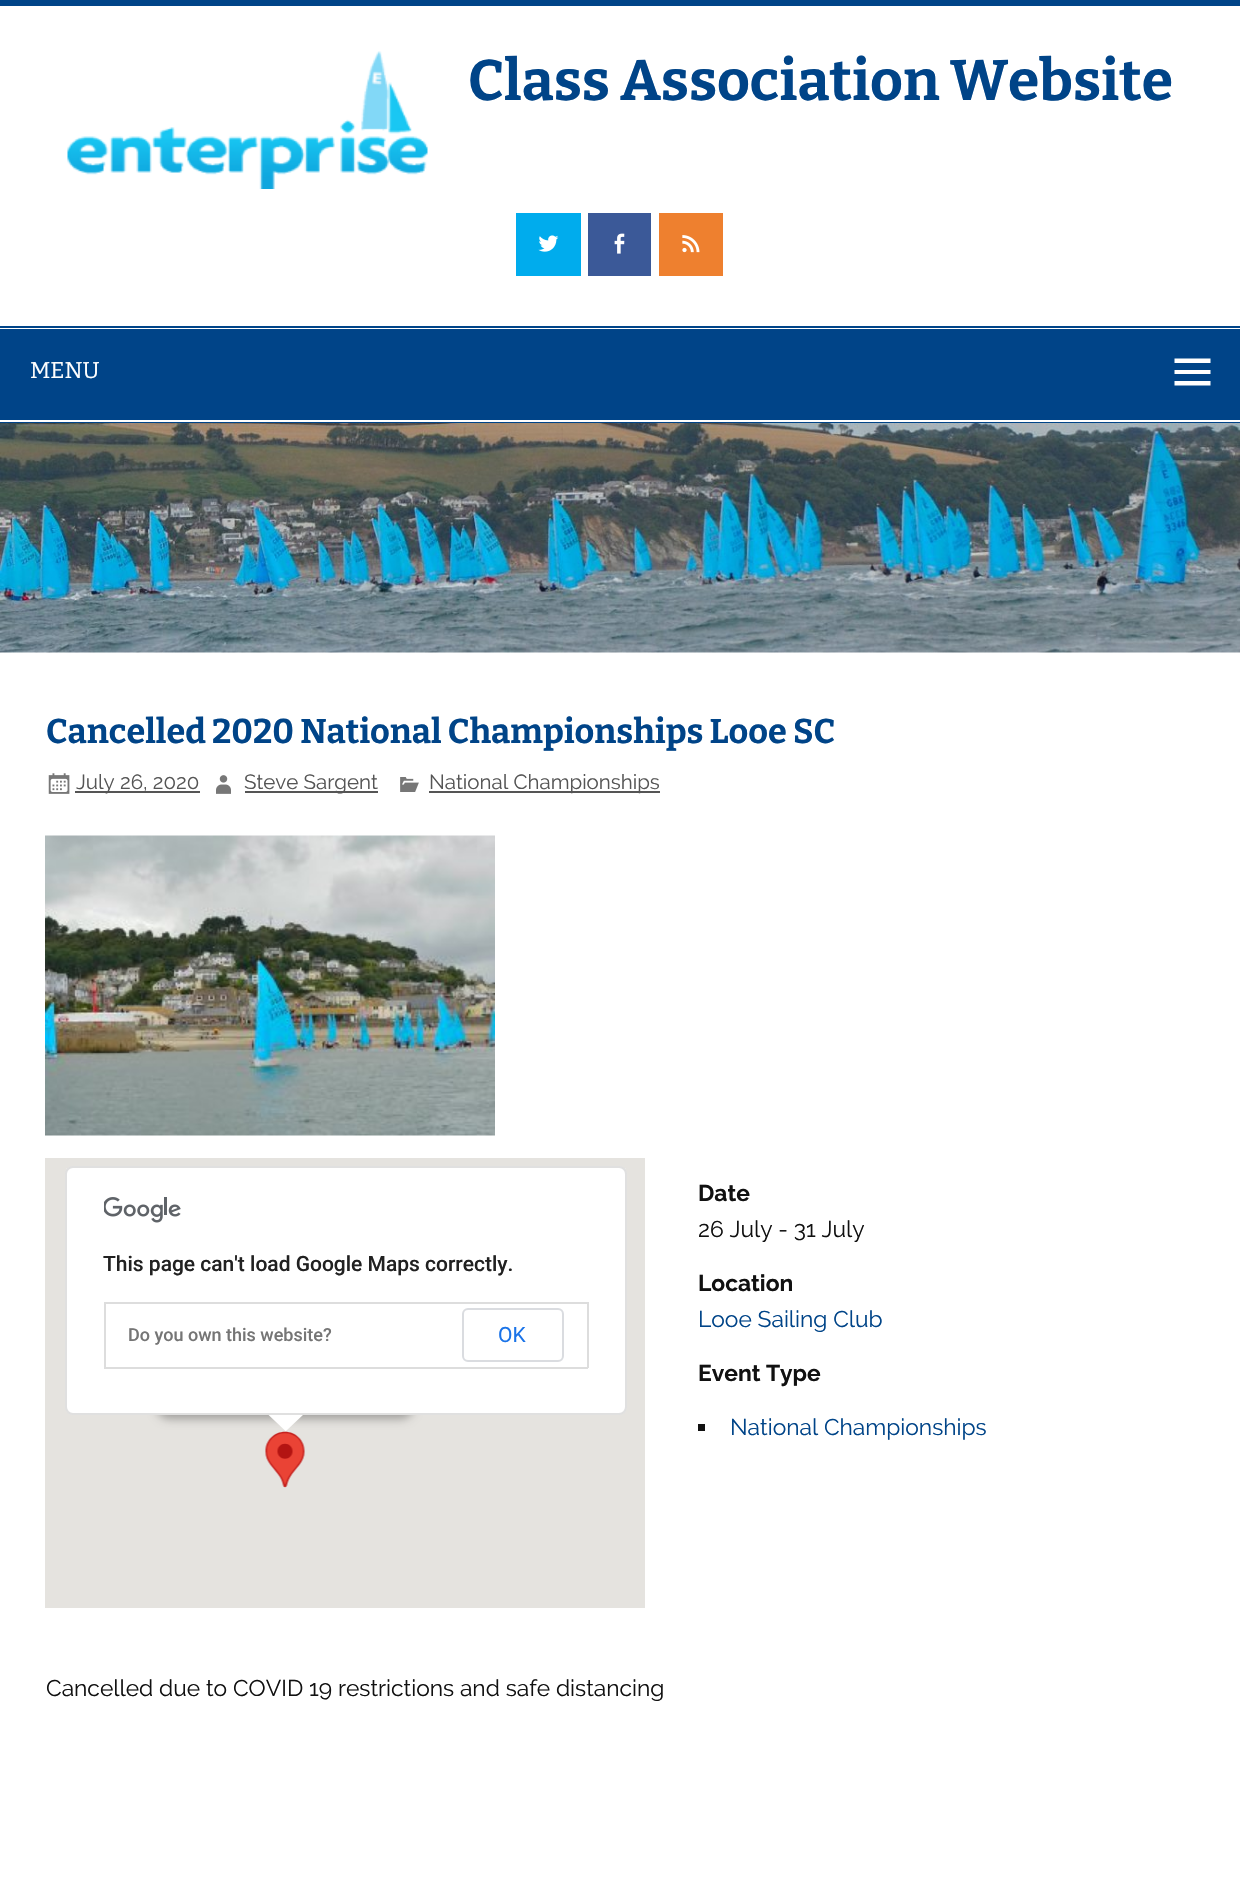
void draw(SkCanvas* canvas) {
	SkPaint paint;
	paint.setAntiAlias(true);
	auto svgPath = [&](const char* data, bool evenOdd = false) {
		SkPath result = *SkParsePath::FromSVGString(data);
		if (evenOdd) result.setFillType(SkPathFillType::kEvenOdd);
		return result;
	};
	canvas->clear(0xffffffff);
	paint.setColor(0xff004488);
	canvas->drawRect(SkRect::MakeXYWH(0, 0, 1240, 6), paint);
	canvas->drawImageRect(SkImages::DeferredFromEncodedData(SkData::MakeFromFileName("img1.png")), SkRect::MakeXYWH(67, 51, 361, 138), SkSamplingOptions());
	SkFont f1(fontMgr->matchFamilyStyle("Bitter", SkFontStyle::Bold()), 57);
	f1.setSubpixel(true);
	canvas->drawString("Class Association Website", 468, 100, f1, paint);
	paint.setColor(0xff00aced);
	canvas->drawRect(SkRect::MakeXYWH(516, 213, 65, 63), paint);
	canvas->drawImageRect(SkImages::DeferredFromEncodedData(SkData::MakeFromFileName("img2.png")), SkRect::MakeXYWH(538, 235, 21, 17), SkSamplingOptions());
	paint.setColor(0xff3b5998);
	canvas->drawRect(SkRect::MakeXYWH(588, 213, 63, 63), paint);
	canvas->drawImageRect(SkImages::DeferredFromEncodedData(SkData::MakeFromFileName("img3.png")), SkRect::MakeXYWH(614, 233, 11, 21), SkSamplingOptions());
	paint.setColor(0xffee802f);
	canvas->drawRect(SkRect::MakeXYWH(659, 213, 64, 63), paint);
	canvas->drawImageRect(SkImages::DeferredFromEncodedData(SkData::MakeFromFileName("img4.png")), SkRect::MakeXYWH(682, 235, 18, 18), SkSamplingOptions());
	paint.setColor(0xff004488);
	canvas->drawRect(SkRect::MakeXYWH(0, 326, 1240, 2), paint);
	canvas->drawRect(SkRect::MakeXYWH(0, 422, 1240, 1), paint);
	canvas->drawRect(SkRect::MakeXYWH(0, 329, 1240, 91), paint);
	SkFont f2(fontMgr->matchFamilyStyle("Bitter", SkFontStyle::Normal()), 22.8);
	f2.setSubpixel(true);
	paint.setColor(0xffffffff);
	canvas->drawString("MENU", 30, 378, f2, paint);
	canvas->drawPath(svgPath("M1174.5 385.5V381H1210.5V385.5ZM1174.5 358.5H1210.5V363H1174.5ZM1174.5 374V370H1210.5V374Z"), paint);
	canvas->drawImageRect(SkImages::DeferredFromEncodedData(SkData::MakeFromFileName("img5.png")), SkRect::MakeXYWH(0, 423, 1240, 230), SkSamplingOptions());
	SkFont f3(fontMgr->matchFamilyStyle("Bitter", SkFontStyle::Bold()), 34.2);
	f3.setSubpixel(true);
	paint.setColor(0xff004488);
	canvas->drawString("Cancelled 2020 National Championships Looe SC", 46, 743, f3, paint);
	canvas->drawImageRect(SkImages::DeferredFromEncodedData(SkData::MakeFromFileName("img6.png")), SkRect::MakeXYWH(48, 773, 22, 21), SkSamplingOptions());
	paint.setColor(0xff555555);
	canvas->drawRect(SkRect::MakeXYWH(75, 791, 125, 2), paint);
	SkFont f4(fontMgr->matchFamilyStyle("Raleway", SkFontStyle::Normal()), 20.5);
	f4.setSubpixel(true);
	canvas->drawString("July 26, 2020", 76, 789, f4, paint);
	canvas->drawImageRect(SkImages::DeferredFromEncodedData(SkData::MakeFromFileName("img7.png")), SkRect::MakeXYWH(216, 775, 15, 19), SkSamplingOptions());
	canvas->drawRect(SkRect::MakeXYWH(245, 791, 133, 2), paint);
	canvas->drawString("Steve Sargent", 244, 789, f4, paint);
	canvas->drawImageRect(SkImages::DeferredFromEncodedData(SkData::MakeFromFileName("img8.png")), SkRect::MakeXYWH(400, 777, 19, 15), SkSamplingOptions());
	canvas->drawRect(SkRect::MakeXYWH(429, 791, 231, 2), paint);
	canvas->drawString("National Championships", 429, 789, f4, paint);
	canvas->drawImageRect(SkImages::DeferredFromEncodedData(SkData::MakeFromFileName("img9.png")), SkRect::MakeXYWH(45, 835, 450, 301), SkSamplingOptions());
	SkFont f5(fontMgr->matchFamilyStyle("Raleway", SkFontStyle::Bold()), 22.8);
	f5.setSubpixel(true);
	paint.setColor(0xff111111);
	canvas->drawString("Date", 698, 1201, f5, paint);
	SkFont f6(fontMgr->matchFamilyStyle("Raleway", SkFontStyle::Normal()), 22.8);
	f6.setSubpixel(true);
	canvas->drawString("26 July - 31 July", 698, 1237, f6, paint);
	paint.setColor(0xffe5e3df);
	canvas->drawRect(SkRect::MakeXYWH(45, 1158, 600, 450), paint);
	canvas->drawImageRect(SkImages::DeferredFromEncodedData(SkData::MakeFromFileName("img10.png")), SkRect::MakeXYWH(265, 1431, 40, 57), SkSamplingOptions());
	paint.setColor(0x4d000000);
	paint.setMaskFilter(SkMaskFilter::MakeBlur(kNormal_SkBlurStyle, 5));
	canvas->drawRoundRect(SkRect::MakeXYWH(156, 1248, 258, 171), 14, 14, paint);
	paint.setMaskFilter(nullptr);
	paint.setColor(0xffffffff);
	canvas->drawPath(svgPath("M267 1413.5H304.5L286 1431H285.5Z"), paint);
	canvas->drawRoundRect(SkRect::MakeXYWH(65, 1166, 562, 249), 8, 8, paint);
	paint.setStroke(true);
	paint.setStrokeWidth(2);
	paint.setColor(0x1f000000);
	canvas->drawRoundRect(SkRect::MakeXYWH(66, 1167, 560, 247), 7, 7, paint);
	canvas->drawImageRect(SkImages::DeferredFromEncodedData(SkData::MakeFromFileName("img11.png")), SkRect::MakeXYWH(104, 1197, 77, 26), SkSamplingOptions());
	SkFont f7(fontMgr->matchFamilyStyle("Roboto", SkFontStyle(500, SkFontStyle::kNormal_Width, SkFontStyle::kUpright_Slant)), 21);
	f7.setSubpixel(true);
	paint.setStroke(false);
	paint.setColor(0xff212121);
	canvas->drawString("This page can't load Google Maps correctly.", 103, 1271, f7, paint);
	paint.setColor(0xffdddddd);
	canvas->drawRect(SkRect::MakeXYWH(104, 1302, 484, 2), paint);
	canvas->drawRect(SkRect::MakeXYWH(587, 1302, 2, 66), paint);
	canvas->drawRect(SkRect::MakeXYWH(104, 1367, 484, 2), paint);
	canvas->drawRect(SkRect::MakeXYWH(104, 1302, 2, 66), paint);
	SkFont f8(fontMgr->matchFamilyStyle("Roboto", SkFontStyle(500, SkFontStyle::kNormal_Width, SkFontStyle::kUpright_Slant)), 18);
	f8.setSubpixel(true);
	paint.setColor(0xff757575);
	canvas->drawString("Do you own this website?", 128, 1341, f8, paint);
	paint.setStroke(true);
	paint.setColor(0xffdadce0);
	canvas->drawRoundRect(SkRect::MakeXYWH(463, 1309, 100, 52), 5, 5, paint);
	SkFont f9(fontMgr->matchFamilyStyle("Roboto", SkFontStyle::Normal()), 21);
	f9.setSubpixel(true);
	paint.setStroke(false);
	paint.setColor(0xff1a73e8);
	canvas->drawString("OK", 498, 1342, f9, paint);
	paint.setColor(0xff111111);
	canvas->drawString("Location", 698, 1291, f5, paint);
	paint.setColor(0xff004488);
	canvas->drawString("Looe Sailing Club", 698, 1327, f6, paint);
	paint.setColor(0xff111111);
	canvas->drawString("Event Type", 698, 1381, f5, paint);
	canvas->drawRect(SkRect::MakeXYWH(698, 1424, 7, 7), paint);
	paint.setColor(0xff004488);
	canvas->drawString("National Championships", 730, 1435, f6, paint);
	paint.setColor(0xff111111);
	canvas->drawString("Cancelled due to COVID 19 restrictions and safe distancing", 46, 1696, f6, paint);
}
